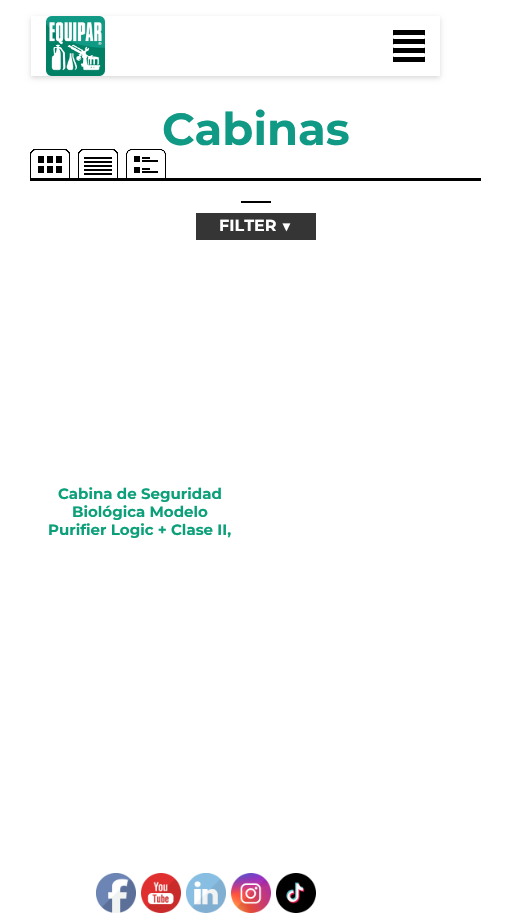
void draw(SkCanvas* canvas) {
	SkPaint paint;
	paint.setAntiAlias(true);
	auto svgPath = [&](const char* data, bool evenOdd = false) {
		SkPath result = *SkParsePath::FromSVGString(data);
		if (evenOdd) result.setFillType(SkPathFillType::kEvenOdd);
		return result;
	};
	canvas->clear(0xffffffff);
	canvas->save();
	canvas->clipPath(svgPath("M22 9H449V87H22ZM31 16H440V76H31Z", true), true);
	paint.setColor(0x26000000);
	paint.setMaskFilter(SkMaskFilter::MakeBlur(kNormal_SkBlurStyle, 2.5));
	canvas->drawRect(SkRect::MakeXYWH(31, 18, 409, 60), paint);
	paint.setMaskFilter(nullptr);
	canvas->restore();
	canvas->drawImageRect(SkImages::DeferredFromEncodedData(SkData::MakeFromFileName("img1.png")), SkRect::MakeXYWH(46, 16, 59, 60), SkSamplingOptions());
	paint.setColor(0xff000000);
	canvas->drawRect(SkRect::MakeXYWH(393, 30, 32, 32), paint);
	paint.setColor(0xffffffff);
	canvas->drawRoundRect(SkRect::MakeXYWH(393, 35, 32, 4), 1, 1, paint);
	canvas->drawRoundRect(SkRect::MakeXYWH(393, 44, 32, 4), 1, 1, paint);
	canvas->drawRoundRect(SkRect::MakeXYWH(393, 53, 32, 4), 1, 1, paint);
	SkFont f1(fontMgr->matchFamilyStyle("Montserrat", SkFontStyle(100, SkFontStyle::kNormal_Width, SkFontStyle::kUpright_Slant)), 45);
	f1.setSubpixel(true);
	paint.setColor(0xff109984);
	canvas->drawString("Cabinas", 162, 145, f1, paint);
	paint.setColor(0xff000000);
	canvas->drawRect(SkRect::MakeXYWH(241, 201, 30, 2), paint);
	canvas->drawRect(SkRect::MakeXYWH(30, 178, 451, 3), paint);
	canvas->drawImageRect(SkImages::DeferredFromEncodedData(SkData::MakeFromFileName("img2.png")), SkRect::MakeXYWH(30, 149, 40, 29), SkSamplingOptions());
	canvas->drawImageRect(SkImages::DeferredFromEncodedData(SkData::MakeFromFileName("img3.png")), SkRect::MakeXYWH(78, 149, 40, 29), SkSamplingOptions());
	canvas->drawImageRect(SkImages::DeferredFromEncodedData(SkData::MakeFromFileName("img4.png")), SkRect::MakeXYWH(126, 149, 40, 29), SkSamplingOptions());
	paint.setColor(0xff353535);
	canvas->drawRect(SkRect::MakeXYWH(196, 213, 120, 27), paint);
	SkFont f2(fontMgr->matchFamilyStyle("Montserrat", SkFontStyle(100, SkFontStyle::kNormal_Width, SkFontStyle::kUpright_Slant)), 16);
	f2.setSubpixel(true);
	paint.setColor(0xffffffff);
	canvas->drawString("FILTER", 219, 231, f2, paint);
	SkFont f3(fontMgr->matchFamilyStyle("Liberation Sans", SkFontStyle::Normal()), 13);
	f3.setSubpixel(true);
	canvas->drawString("▼", 280, 231, f3, paint);
	SkFont f4(fontMgr->matchFamilyStyle("Montserrat", SkFontStyle(100, SkFontStyle::kNormal_Width, SkFontStyle::kUpright_Slant)), 15);
	f4.setSubpixel(true);
	paint.setColor(0xff0ca07a);
	canvas->drawString("Cabina de Seguridad", 58, 499, f4, paint);
	canvas->drawString("Biológica Modelo", 72, 517, f4, paint);
	canvas->drawString("Purifier Logic + Clase II,", 48, 535, f4, paint);
	canvas->drawImageRect(SkImages::DeferredFromEncodedData(SkData::MakeFromFileName("img5.png")), SkRect::MakeXYWH(96, 873, 40, 40), SkSamplingOptions());
	canvas->drawImageRect(SkImages::DeferredFromEncodedData(SkData::MakeFromFileName("img6.png")), SkRect::MakeXYWH(141, 873, 40, 40), SkSamplingOptions());
	canvas->drawImageRect(SkImages::DeferredFromEncodedData(SkData::MakeFromFileName("img7.png")), SkRect::MakeXYWH(186, 873, 40, 40), SkSamplingOptions());
	canvas->drawImageRect(SkImages::DeferredFromEncodedData(SkData::MakeFromFileName("img8.png")), SkRect::MakeXYWH(231, 873, 40, 40), SkSamplingOptions());
	canvas->drawImageRect(SkImages::DeferredFromEncodedData(SkData::MakeFromFileName("img9.png")), SkRect::MakeXYWH(276, 873, 40, 40), SkSamplingOptions());
}
